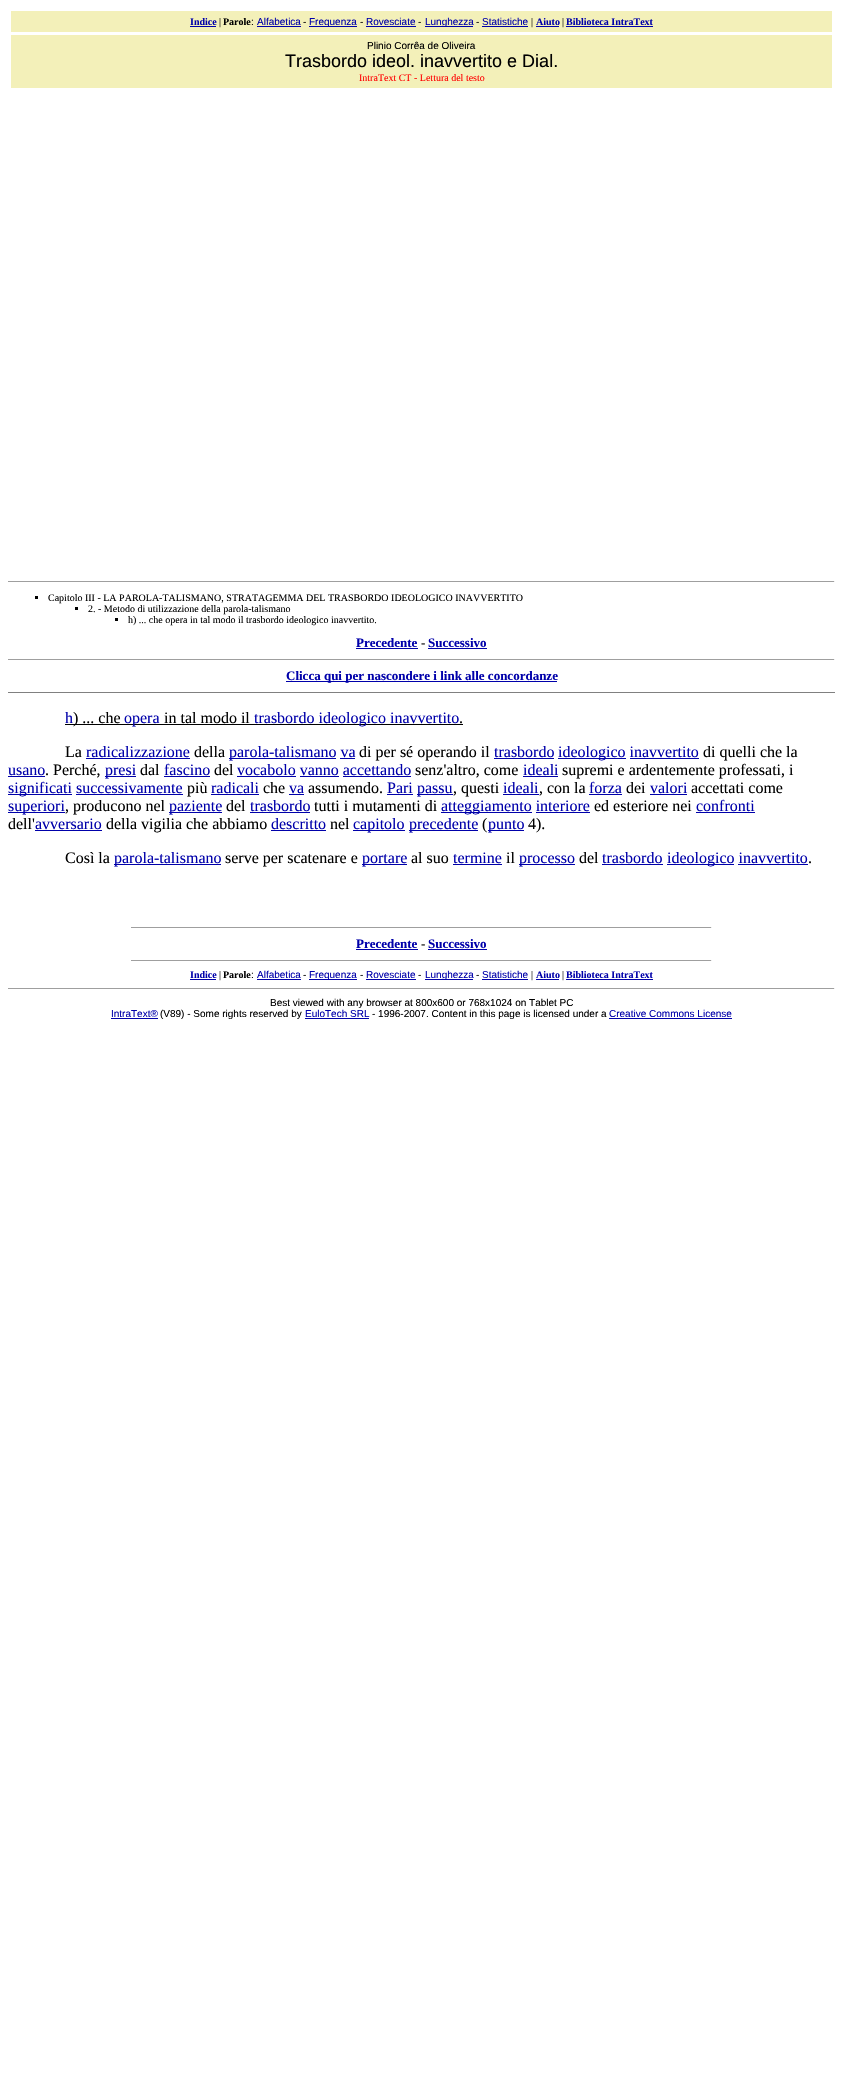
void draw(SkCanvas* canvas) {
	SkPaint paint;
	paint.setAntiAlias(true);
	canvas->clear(0xffffffff);
	paint.setColor(0xfff3f0b9);
	canvas->drawRect(SkRect::MakeXYWH(11, 11, 821, 21), paint);
	SkFont f1(fontMgr->matchFamilyStyle("Liberation Serif", SkFontStyle::Bold()), 10);
	f1.setSubpixel(true);
	paint.setColor(0xff0000aa);
	canvas->drawString("Indice", 190, 25, f1, paint);
	canvas->drawRect(SkRect::MakeXYWH(190, 26, 26, 1), paint);
	SkFont f2(fontMgr->matchFamilyStyle("Liberation Serif", SkFontStyle::Normal()), 10);
	f2.setSubpixel(true);
	paint.setColor(0xff000000);
	canvas->drawString("|", 219, 25, f2, paint);
	canvas->drawString("Parole", 223, 25, f1, paint);
	SkFont f3(fontMgr->matchFamilyStyle("Liberation Sans", SkFontStyle::Normal()), 10);
	f3.setSubpixel(true);
	canvas->drawString(":", 251, 25, f3, paint);
	paint.setColor(0xff0000aa);
	canvas->drawString("Alfabetica", 257, 25, f3, paint);
	canvas->drawRect(SkRect::MakeXYWH(257, 26, 44, 1), paint);
	paint.setColor(0xff000000);
	canvas->drawString("-", 303, 25, f3, paint);
	paint.setColor(0xff0000aa);
	canvas->drawRect(SkRect::MakeXYWH(309, 26, 48, 1), paint);
	canvas->drawString("Frequenza", 309, 25, f3, paint);
	paint.setColor(0xff000000);
	canvas->drawString("-", 360, 25, f3, paint);
	paint.setColor(0xff0000aa);
	canvas->drawString("Rovesciate", 366, 25, f3, paint);
	canvas->drawRect(SkRect::MakeXYWH(366, 26, 50, 1), paint);
	paint.setColor(0xff000000);
	canvas->drawString("-", 418, 25, f3, paint);
	paint.setColor(0xff0000aa);
	canvas->drawRect(SkRect::MakeXYWH(425, 26, 48, 1), paint);
	canvas->drawString("Lunghezza", 425, 25, f3, paint);
	paint.setColor(0xff000000);
	canvas->drawString("-", 476, 25, f3, paint);
	paint.setColor(0xff0000aa);
	canvas->drawString("Statistiche", 482, 25, f3, paint);
	canvas->drawRect(SkRect::MakeXYWH(482, 26, 46, 1), paint);
	paint.setColor(0xff000000);
	canvas->drawString("|", 531, 25, f2, paint);
	paint.setColor(0xff0000aa);
	canvas->drawString("Aiuto", 536, 25, f1, paint);
	canvas->drawRect(SkRect::MakeXYWH(536, 26, 23, 1), paint);
	paint.setColor(0xff000000);
	canvas->drawString("|", 562, 25, f2, paint);
	paint.setColor(0xff0000aa);
	canvas->drawRect(SkRect::MakeXYWH(566, 26, 87, 1), paint);
	canvas->drawString("Biblioteca IntraText", 566, 25, f1, paint);
	paint.setColor(0xfff3f0b9);
	canvas->drawRect(SkRect::MakeXYWH(11, 35, 821, 53), paint);
	paint.setColor(0xff000000);
	canvas->drawString("Plinio Corrêa de Oliveira", 367, 49, f3, paint);
	SkFont f4(fontMgr->matchFamilyStyle("Liberation Sans", SkFontStyle::Normal()), 18);
	f4.setSubpixel(true);
	canvas->drawString("Trasbordo ideol. inavvertito e Dial.", 285, 67, f4, paint);
	paint.setColor(0xffff0000);
	canvas->drawString("IntraText CT - Lettura del testo", 359, 81, f2, paint);
	paint.setColor(0xff9f9f9f);
	canvas->drawRect(SkRect::MakeXYWH(8, 581, 827, 1), paint);
	paint.setColor(0xffeeeeee);
	canvas->drawRect(SkRect::MakeXYWH(834, 581, 1, 1), paint);
	paint.setColor(0xff000000);
	canvas->drawRect(SkRect::MakeXYWH(35, 596, 3, 3), paint);
	canvas->drawString("Capitolo III - LA PAROLA-TALISMANO, STRATAGEMMA DEL TRASBORDO IDEOLOGICO INAVVERTITO", 48, 601, f2, paint);
	canvas->drawRect(SkRect::MakeXYWH(75, 607, 3, 3), paint);
	canvas->drawString("2. - Metodo di utilizzazione della parola-talismano", 88, 612, f2, paint);
	canvas->drawRect(SkRect::MakeXYWH(115, 618, 3, 3), paint);
	canvas->drawString("h) ... che opera in tal modo il trasbordo ideologico inavvertito.", 128, 623, f2, paint);
	SkFont f5(fontMgr->matchFamilyStyle("Liberation Serif", SkFontStyle::Bold()), 13);
	f5.setSubpixel(true);
	paint.setColor(0xff0000aa);
	canvas->drawString("Precedente", 356, 647, f5, paint);
	canvas->drawRect(SkRect::MakeXYWH(356, 648, 62, 1), paint);
	SkFont f6(fontMgr->matchFamilyStyle("Liberation Serif", SkFontStyle::Normal()), 13);
	f6.setSubpixel(true);
	paint.setColor(0xff000000);
	canvas->drawString("-", 421, 647, f6, paint);
	paint.setColor(0xff0000aa);
	canvas->drawString("Successivo", 428, 647, f5, paint);
	canvas->drawRect(SkRect::MakeXYWH(428, 648, 59, 1), paint);
	paint.setColor(0xff9f9f9f);
	canvas->drawRect(SkRect::MakeXYWH(8, 659, 827, 1), paint);
	paint.setColor(0xffeeeeee);
	canvas->drawRect(SkRect::MakeXYWH(834, 659, 1, 1), paint);
	paint.setColor(0xff0000aa);
	canvas->drawRect(SkRect::MakeXYWH(286, 681, 271, 1), paint);
	canvas->drawString("Clicca qui per nascondere i link alle concordanze", 286, 680, f5, paint);
	paint.setColor(0xff808080);
	canvas->drawRect(SkRect::MakeXYWH(8, 692, 827, 1), paint);
	SkFont f7(fontMgr->matchFamilyStyle("Liberation Serif", SkFontStyle::Normal()), 16);
	f7.setSubpixel(true);
	paint.setColor(0xff0000aa);
	canvas->drawString("h", 65, 723, f7, paint);
	paint.setColor(0xff000000);
	canvas->drawRect(SkRect::MakeXYWH(65, 724, 398, 1), paint);
	canvas->drawString(") ... che", 73, 723, f7, paint);
	paint.setColor(0xff0000aa);
	canvas->drawString("opera", 124, 723, f7, paint);
	paint.setColor(0xff000000);
	canvas->drawString("in tal modo il", 164, 723, f7, paint);
	paint.setColor(0xff0000aa);
	canvas->drawString("trasbordo ideologico inavvertito", 254, 723, f7, paint);
	paint.setColor(0xff000000);
	canvas->drawString(".", 459, 723, f7, paint);
	canvas->drawString("La", 65, 757, f7, paint);
	paint.setColor(0xff0000aa);
	canvas->drawString("radicalizzazione", 86, 757, f7, paint);
	canvas->drawRect(SkRect::MakeXYWH(86, 758, 104, 1), paint);
	paint.setColor(0xff000000);
	canvas->drawString("della", 194, 757, f7, paint);
	paint.setColor(0xff0000aa);
	canvas->drawRect(SkRect::MakeXYWH(229, 758, 107, 1), paint);
	canvas->drawString("parola-talismano va", 229, 757, f7, paint);
	paint.setColor(0xff000000);
	canvas->drawString("di per sé operando il", 359, 757, f7, paint);
	paint.setColor(0xff0000aa);
	canvas->drawString("trasbordo", 494, 757, f7, paint);
	canvas->drawRect(SkRect::MakeXYWH(494, 758, 60, 1), paint);
	canvas->drawRect(SkRect::MakeXYWH(558, 758, 68, 1), paint);
	canvas->drawString("ideologico inavvertito", 558, 757, f7, paint);
	paint.setColor(0xff000000);
	canvas->drawString("di quelli che la", 703, 757, f7, paint);
	paint.setColor(0xff0000aa);
	canvas->drawRect(SkRect::MakeXYWH(340, 758, 15, 1), paint);
	canvas->drawRect(SkRect::MakeXYWH(630, 758, 69, 1), paint);
	canvas->drawString("usano", 8, 775, f7, paint);
	canvas->drawRect(SkRect::MakeXYWH(8, 776, 37, 1), paint);
	paint.setColor(0xff000000);
	canvas->drawString(". Perché,", 45, 775, f7, paint);
	paint.setColor(0xff0000aa);
	canvas->drawRect(SkRect::MakeXYWH(105, 776, 31, 1), paint);
	canvas->drawString("presi", 105, 775, f7, paint);
	paint.setColor(0xff000000);
	canvas->drawString("dal", 140, 775, f7, paint);
	paint.setColor(0xff0000aa);
	canvas->drawString("fascino", 164, 775, f7, paint);
	canvas->drawRect(SkRect::MakeXYWH(164, 776, 46, 1), paint);
	paint.setColor(0xff000000);
	canvas->drawString("del", 214, 775, f7, paint);
	paint.setColor(0xff0000aa);
	canvas->drawString("vocabolo vanno accettando", 237, 775, f7, paint);
	canvas->drawRect(SkRect::MakeXYWH(237, 776, 59, 1), paint);
	paint.setColor(0xff000000);
	canvas->drawString("senz'altro, come", 415, 775, f7, paint);
	paint.setColor(0xff0000aa);
	canvas->drawString("ideali", 523, 775, f7, paint);
	canvas->drawRect(SkRect::MakeXYWH(523, 776, 35, 1), paint);
	paint.setColor(0xff000000);
	canvas->drawString("supremi e ardentemente professati, i", 562, 775, f7, paint);
	paint.setColor(0xff0000aa);
	canvas->drawRect(SkRect::MakeXYWH(300, 776, 39, 1), paint);
	canvas->drawRect(SkRect::MakeXYWH(343, 776, 68, 1), paint);
	canvas->drawRect(SkRect::MakeXYWH(8, 794, 64, 1), paint);
	canvas->drawString("significati successivamente", 8, 793, f7, paint);
	paint.setColor(0xff000000);
	canvas->drawString("più", 187, 793, f7, paint);
	paint.setColor(0xff0000aa);
	canvas->drawString("radicali", 211, 793, f7, paint);
	canvas->drawRect(SkRect::MakeXYWH(211, 794, 48, 1), paint);
	paint.setColor(0xff000000);
	canvas->drawString("che", 263, 793, f7, paint);
	paint.setColor(0xff0000aa);
	canvas->drawString("va", 289, 793, f7, paint);
	canvas->drawRect(SkRect::MakeXYWH(289, 794, 15, 1), paint);
	paint.setColor(0xff000000);
	canvas->drawString("assumendo.", 308, 793, f7, paint);
	paint.setColor(0xff0000aa);
	canvas->drawString("Pari", 387, 793, f7, paint);
	canvas->drawRect(SkRect::MakeXYWH(387, 794, 26, 1), paint);
	canvas->drawRect(SkRect::MakeXYWH(417, 794, 36, 1), paint);
	canvas->drawString("passu", 417, 793, f7, paint);
	paint.setColor(0xff000000);
	canvas->drawString(", questi", 453, 793, f7, paint);
	paint.setColor(0xff0000aa);
	canvas->drawString("ideali", 503, 793, f7, paint);
	canvas->drawRect(SkRect::MakeXYWH(503, 794, 36, 1), paint);
	paint.setColor(0xff000000);
	canvas->drawString(", con la", 539, 793, f7, paint);
	paint.setColor(0xff0000aa);
	canvas->drawString("forza", 589, 793, f7, paint);
	canvas->drawRect(SkRect::MakeXYWH(589, 794, 33, 1), paint);
	paint.setColor(0xff000000);
	canvas->drawString("dei", 626, 793, f7, paint);
	paint.setColor(0xff0000aa);
	canvas->drawString("valori", 650, 793, f7, paint);
	canvas->drawRect(SkRect::MakeXYWH(650, 794, 37, 1), paint);
	paint.setColor(0xff000000);
	canvas->drawString("accettati come", 691, 793, f7, paint);
	paint.setColor(0xff0000aa);
	canvas->drawRect(SkRect::MakeXYWH(76, 794, 107, 1), paint);
	canvas->drawRect(SkRect::MakeXYWH(8, 812, 57, 1), paint);
	canvas->drawString("superiori", 8, 811, f7, paint);
	paint.setColor(0xff000000);
	canvas->drawString(", producono nel", 65, 811, f7, paint);
	paint.setColor(0xff0000aa);
	canvas->drawRect(SkRect::MakeXYWH(169, 812, 53, 1), paint);
	canvas->drawString("paziente", 169, 811, f7, paint);
	paint.setColor(0xff000000);
	canvas->drawString("del", 226, 811, f7, paint);
	paint.setColor(0xff0000aa);
	canvas->drawString("trasbordo", 250, 811, f7, paint);
	canvas->drawRect(SkRect::MakeXYWH(250, 812, 60, 1), paint);
	paint.setColor(0xff000000);
	canvas->drawString("tutti i mutamenti di", 314, 811, f7, paint);
	paint.setColor(0xff0000aa);
	canvas->drawRect(SkRect::MakeXYWH(441, 812, 91, 1), paint);
	canvas->drawString("atteggiamento interiore", 441, 811, f7, paint);
	paint.setColor(0xff000000);
	canvas->drawString("ed esteriore nei", 594, 811, f7, paint);
	paint.setColor(0xff0000aa);
	canvas->drawString("confronti", 696, 811, f7, paint);
	canvas->drawRect(SkRect::MakeXYWH(696, 812, 59, 1), paint);
	canvas->drawRect(SkRect::MakeXYWH(536, 812, 54, 1), paint);
	paint.setColor(0xff000000);
	canvas->drawString("dell'", 8, 829, f7, paint);
	paint.setColor(0xff0000aa);
	canvas->drawString("avversario", 35, 829, f7, paint);
	canvas->drawRect(SkRect::MakeXYWH(35, 830, 67, 1), paint);
	paint.setColor(0xff000000);
	canvas->drawString("della vigilia che abbiamo", 106, 829, f7, paint);
	paint.setColor(0xff0000aa);
	canvas->drawString("descritto", 271, 829, f7, paint);
	canvas->drawRect(SkRect::MakeXYWH(271, 830, 55, 1), paint);
	paint.setColor(0xff000000);
	canvas->drawString("nel", 330, 829, f7, paint);
	paint.setColor(0xff0000aa);
	canvas->drawRect(SkRect::MakeXYWH(353, 830, 52, 1), paint);
	canvas->drawString("capitolo", 353, 829, f7, paint);
	canvas->drawRect(SkRect::MakeXYWH(409, 830, 69, 1), paint);
	canvas->drawString("precedente", 409, 829, f7, paint);
	paint.setColor(0xff000000);
	canvas->drawString("(", 482, 829, f7, paint);
	paint.setColor(0xff0000aa);
	canvas->drawRect(SkRect::MakeXYWH(488, 830, 36, 1), paint);
	canvas->drawString("punto", 488, 829, f7, paint);
	paint.setColor(0xff000000);
	canvas->drawString("4).", 528, 829, f7, paint);
	canvas->drawString("Così la", 65, 863, f7, paint);
	paint.setColor(0xff0000aa);
	canvas->drawRect(SkRect::MakeXYWH(114, 864, 107, 1), paint);
	canvas->drawString("parola-talismano", 114, 863, f7, paint);
	paint.setColor(0xff000000);
	canvas->drawString("serve per scatenare e", 225, 863, f7, paint);
	paint.setColor(0xff0000aa);
	canvas->drawRect(SkRect::MakeXYWH(362, 864, 45, 1), paint);
	canvas->drawString("portare", 362, 863, f7, paint);
	paint.setColor(0xff000000);
	canvas->drawString("al suo", 411, 863, f7, paint);
	paint.setColor(0xff0000aa);
	canvas->drawString("termine", 453, 863, f7, paint);
	canvas->drawRect(SkRect::MakeXYWH(453, 864, 49, 1), paint);
	paint.setColor(0xff000000);
	canvas->drawString("il", 506, 863, f7, paint);
	paint.setColor(0xff0000aa);
	canvas->drawRect(SkRect::MakeXYWH(519, 864, 56, 1), paint);
	canvas->drawString("processo", 519, 863, f7, paint);
	paint.setColor(0xff000000);
	canvas->drawString("del", 579, 863, f7, paint);
	paint.setColor(0xff0000aa);
	canvas->drawString("trasbordo", 602, 863, f7, paint);
	canvas->drawRect(SkRect::MakeXYWH(602, 864, 61, 1), paint);
	canvas->drawRect(SkRect::MakeXYWH(667, 864, 67, 1), paint);
	canvas->drawString("ideologico inavvertito", 667, 863, f7, paint);
	paint.setColor(0xff000000);
	canvas->drawString(".", 808, 863, f7, paint);
	paint.setColor(0xff0000aa);
	canvas->drawRect(SkRect::MakeXYWH(738, 864, 70, 1), paint);
	paint.setColor(0xff9f9f9f);
	canvas->drawRect(SkRect::MakeXYWH(131, 927, 581, 1), paint);
	paint.setColor(0xffeeeeee);
	canvas->drawRect(SkRect::MakeXYWH(711, 927, 1, 1), paint);
	paint.setColor(0xff0000aa);
	canvas->drawString("Precedente", 356, 948, f5, paint);
	canvas->drawRect(SkRect::MakeXYWH(356, 949, 62, 1), paint);
	paint.setColor(0xff000000);
	canvas->drawString("-", 421, 948, f6, paint);
	paint.setColor(0xff0000aa);
	canvas->drawString("Successivo", 428, 948, f5, paint);
	canvas->drawRect(SkRect::MakeXYWH(428, 949, 59, 1), paint);
	paint.setColor(0xff9f9f9f);
	canvas->drawRect(SkRect::MakeXYWH(131, 960, 581, 1), paint);
	paint.setColor(0xffeeeeee);
	canvas->drawRect(SkRect::MakeXYWH(711, 960, 1, 1), paint);
	paint.setColor(0xff0000aa);
	canvas->drawString("Indice", 190, 978, f1, paint);
	canvas->drawRect(SkRect::MakeXYWH(190, 979, 26, 1), paint);
	paint.setColor(0xff000000);
	canvas->drawString("|", 219, 978, f2, paint);
	canvas->drawString("Parole", 223, 978, f1, paint);
	canvas->drawString(":", 251, 978, f3, paint);
	paint.setColor(0xff0000aa);
	canvas->drawString("Alfabetica", 257, 978, f3, paint);
	canvas->drawRect(SkRect::MakeXYWH(257, 979, 44, 1), paint);
	paint.setColor(0xff000000);
	canvas->drawString("-", 303, 978, f3, paint);
	paint.setColor(0xff0000aa);
	canvas->drawRect(SkRect::MakeXYWH(309, 979, 48, 1), paint);
	canvas->drawString("Frequenza", 309, 978, f3, paint);
	paint.setColor(0xff000000);
	canvas->drawString("-", 360, 978, f3, paint);
	paint.setColor(0xff0000aa);
	canvas->drawString("Rovesciate", 366, 978, f3, paint);
	canvas->drawRect(SkRect::MakeXYWH(366, 979, 50, 1), paint);
	paint.setColor(0xff000000);
	canvas->drawString("-", 418, 978, f3, paint);
	paint.setColor(0xff0000aa);
	canvas->drawRect(SkRect::MakeXYWH(425, 979, 48, 1), paint);
	canvas->drawString("Lunghezza", 425, 978, f3, paint);
	paint.setColor(0xff000000);
	canvas->drawString("-", 476, 978, f3, paint);
	paint.setColor(0xff0000aa);
	canvas->drawString("Statistiche", 482, 978, f3, paint);
	canvas->drawRect(SkRect::MakeXYWH(482, 979, 46, 1), paint);
	paint.setColor(0xff000000);
	canvas->drawString("|", 531, 978, f2, paint);
	paint.setColor(0xff0000aa);
	canvas->drawString("Aiuto", 536, 978, f1, paint);
	canvas->drawRect(SkRect::MakeXYWH(536, 979, 23, 1), paint);
	paint.setColor(0xff000000);
	canvas->drawString("|", 562, 978, f2, paint);
	paint.setColor(0xff0000aa);
	canvas->drawRect(SkRect::MakeXYWH(566, 979, 87, 1), paint);
	canvas->drawString("Biblioteca IntraText", 566, 978, f1, paint);
	paint.setColor(0xff9f9f9f);
	canvas->drawRect(SkRect::MakeXYWH(8, 988, 827, 1), paint);
	paint.setColor(0xffeeeeee);
	canvas->drawRect(SkRect::MakeXYWH(834, 988, 1, 1), paint);
	paint.setColor(0xff000000);
	canvas->drawString("Best viewed with any browser at 800x600 or 768x1024 on Tablet PC", 270, 1006, f3, paint);
	paint.setColor(0xff0000aa);
	canvas->drawString("IntraText®", 111, 1017, f3, paint);
	canvas->drawRect(SkRect::MakeXYWH(111, 1018, 47, 1), paint);
	paint.setColor(0xff000000);
	canvas->drawString("(V89) - Some rights reserved by", 160, 1017, f3, paint);
	paint.setColor(0xff0000aa);
	canvas->drawString("EuloTech SRL", 305, 1017, f3, paint);
	canvas->drawRect(SkRect::MakeXYWH(305, 1018, 64, 1), paint);
	paint.setColor(0xff000000);
	canvas->drawString("- 1996-2007. Content in this page is licensed under a", 372, 1017, f3, paint);
	paint.setColor(0xff0000aa);
	canvas->drawRect(SkRect::MakeXYWH(609, 1018, 123, 1), paint);
	canvas->drawString("Creative Commons License", 609, 1017, f3, paint);
}
